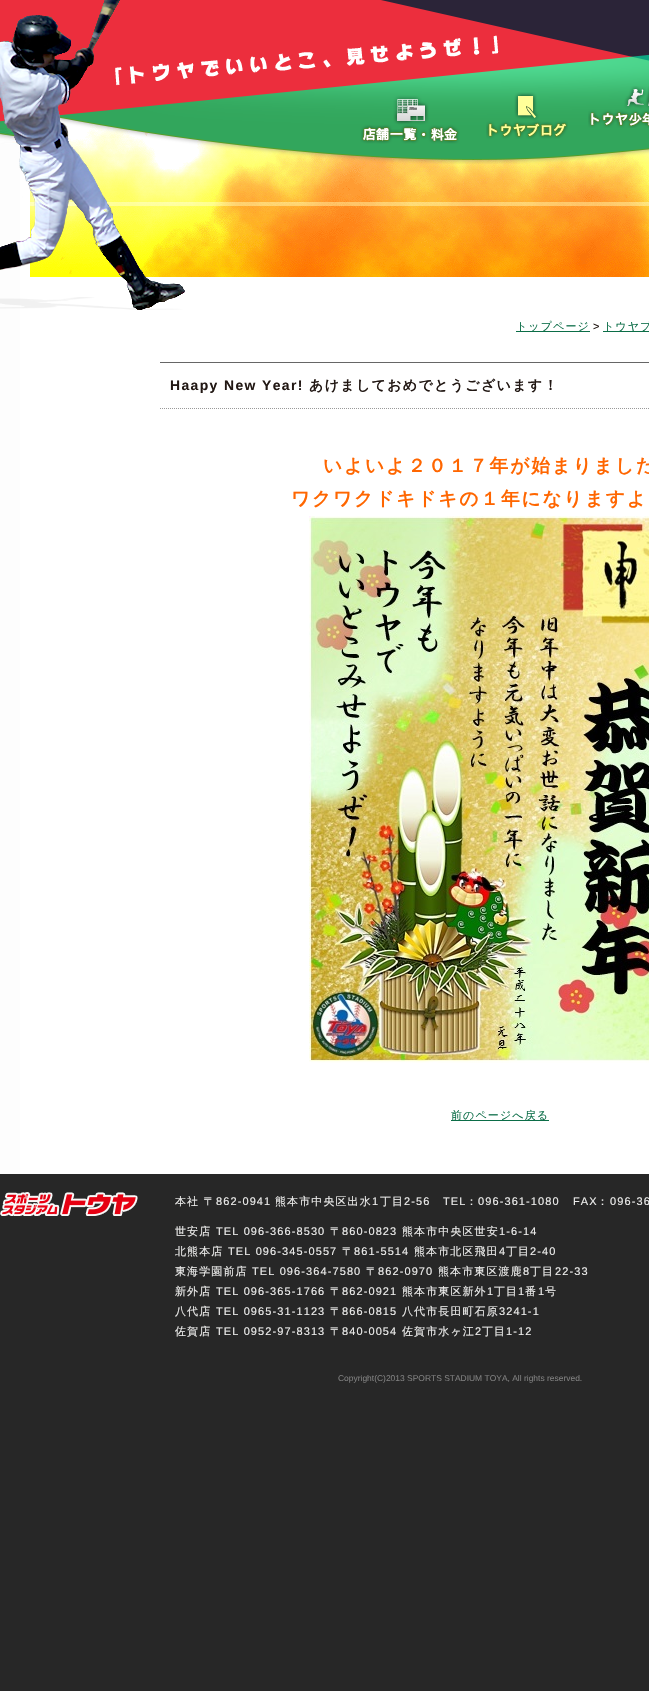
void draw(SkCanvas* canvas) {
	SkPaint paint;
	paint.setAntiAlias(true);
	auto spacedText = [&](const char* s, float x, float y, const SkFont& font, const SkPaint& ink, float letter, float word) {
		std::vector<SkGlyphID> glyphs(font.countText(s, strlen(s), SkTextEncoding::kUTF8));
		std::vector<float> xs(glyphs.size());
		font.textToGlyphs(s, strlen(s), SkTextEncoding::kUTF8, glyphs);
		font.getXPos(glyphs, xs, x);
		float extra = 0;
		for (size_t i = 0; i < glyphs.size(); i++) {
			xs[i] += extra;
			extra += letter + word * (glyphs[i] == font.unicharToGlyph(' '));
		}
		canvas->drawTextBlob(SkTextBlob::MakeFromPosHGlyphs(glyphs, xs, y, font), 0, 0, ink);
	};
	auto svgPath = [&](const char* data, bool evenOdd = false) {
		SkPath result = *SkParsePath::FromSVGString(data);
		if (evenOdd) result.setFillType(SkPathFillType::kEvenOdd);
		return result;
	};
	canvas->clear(0xff272727);
	paint.setColor(0xfffdfdfd);
	canvas->drawRect(SkRect::MakeXYWH(0, 164, 20, 1010), paint);
	canvas->drawImageRect(SkImages::DeferredFromEncodedData(SkData::MakeFromFileName("img1.png")), SkRect::MakeXYWH(0, 120, 20, 44), SkSamplingOptions());
	paint.setColor(0xffffffff);
	canvas->drawRect(SkRect::MakeXYWH(20, 151, 629, 1023), paint);
	canvas->drawImageRect(SkImages::DeferredFromEncodedData(SkData::MakeFromFileName("img7.png")), SkRect::MakeXYWH(30, 117, 619, 160), SkSamplingOptions());
	canvas->drawImageRect(SkImages::DeferredFromEncodedData(SkData::MakeFromFileName("img2.png")), SkRect::MakeXYWH(0, 0, 649, 164), SkSamplingOptions());
	canvas->drawImageRect(SkImages::DeferredFromEncodedData(SkData::MakeFromFileName("img3.png")), SkRect::MakeXYWH(0, 0, 499, 310), SkSamplingOptions());
	canvas->drawImageRect(SkImages::DeferredFromEncodedData(SkData::MakeFromFileName("img4.png")), SkRect::MakeXYWH(360, 95, 100, 49), SkSamplingOptions());
	canvas->drawImageRect(SkImages::DeferredFromEncodedData(SkData::MakeFromFileName("img5.png")), SkRect::MakeXYWH(486, 92, 82, 47), SkSamplingOptions());
	canvas->drawImageRect(SkImages::DeferredFromEncodedData(SkData::MakeFromFileName("img6.png")), SkRect::MakeXYWH(588, 86, 61, 42), SkSamplingOptions());
	paint.setColor(0xff0b6d47);
	canvas->drawRect(SkRect::MakeXYWH(516, 331, 74, 1), paint);
	SkFont f1(fontMgr->matchFamilyStyle("WenQuanYi Zen Hei", SkFontStyle(500, SkFontStyle::kNormal_Width, SkFontStyle::kUpright_Slant)), 11);
	f1.setSubpixel(true);
	spacedText("トップページ", 516, 330, f1, paint, 1.1, 0);
	SkFont f2(fontMgr->matchFamilyStyle("Liberation Sans", SkFontStyle::Normal()), 11);
	f2.setSubpixel(true);
	paint.setColor(0xff221814);
	canvas->drawString(">", 593, 330, f2, paint);
	paint.setColor(0xff0b6d47);
	canvas->drawRect(SkRect::MakeXYWH(603, 331, 46, 1), paint);
	spacedText("トウヤブ", 603, 330, f1, paint, 1.1, 0);
	paint.setColor(0xff666666);
	canvas->drawRect(SkRect::MakeXYWH(160, 362, 489, 1), paint);
	paint.setStroke(true);
	paint.setStrokeWidth(1);
	paint.setColor(0xff999999);
	paint.setPathEffect(SkDashPathEffect::Make({{1, 1}}, 0));
	canvas->drawPath(svgPath("M160 408.5H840"), paint);
	paint.setPathEffect(nullptr);
	SkFont f3(fontMgr->matchFamilyStyle("Liberation Sans", SkFontStyle::Bold()), 13.9);
	f3.setSubpixel(true);
	paint.setStroke(false);
	paint.setColor(0xff221814);
	spacedText("Haapy New Year!", 170, 390, f3, paint, 1.4, 0);
	SkFont f4(fontMgr->matchFamilyStyle("WenQuanYi Zen Hei", SkFontStyle::Bold()), 13.9);
	f4.setSubpixel(true);
	spacedText("あけましておめでとうございます！", 309, 390, f4, paint, 1.4, 0);
	SkFont f5(fontMgr->matchFamilyStyle("WenQuanYi Zen Hei", SkFontStyle::Bold()), 18.7);
	f5.setSubpixel(true);
	paint.setColor(0xffff6600);
	spacedText("いよいよ２０１７年が始まりました", 323, 472, f5, paint, 1.9, 0);
	spacedText("ワクワクドキドキの１年になりますよ", 291, 505, f5, paint, 1.9, 0);
	canvas->drawImageRect(SkImages::DeferredFromEncodedData(SkData::MakeFromFileName("img8.png")), SkRect::MakeXYWH(309, 516, 340, 547), SkSamplingOptions());
	paint.setColor(0xff0b6d47);
	canvas->drawRect(SkRect::MakeXYWH(451, 1120, 98, 1), paint);
	spacedText("前のページへ戻る", 451, 1119, f1, paint, 1.1, 0);
	canvas->drawImageRect(SkImages::DeferredFromEncodedData(SkData::MakeFromFileName("img9.png")), SkRect::MakeXYWH(0, 1192, 138, 24), SkSamplingOptions());
	paint.setColor(0xffededec);
	spacedText("本社 〒", 175, 1205, f1, paint, 1.1, 0);
	spacedText("862-0941", 216, 1205, f2, paint, 1.1, 0);
	spacedText("熊本市中央区出水", 275, 1205, f1, paint, 1.1, 0);
	spacedText("1", 372, 1205, f2, paint, 1.1, 0);
	spacedText("丁目", 380, 1205, f1, paint, 1.1, 0);
	spacedText("2-56", 404, 1205, f2, paint, 1.1, 0);
	spacedText("TEL", 443, 1205, f2, paint, 1.1, 0);
	spacedText("：", 466, 1205, f1, paint, 1.1, 0);
	spacedText("096-361-1080", 478, 1205, f2, paint, 1.1, 0);
	spacedText("FAX", 573, 1205, f2, paint, 1.1, 0);
	spacedText("：", 597, 1205, f1, paint, 1.1, 0);
	spacedText("096-36", 610, 1205, f2, paint, 1.1, 0);
	spacedText("世安店", 175, 1235, f1, paint, 1.1, 0);
	spacedText("TEL 096-366-8530", 216, 1235, f2, paint, 1.1, 0);
	spacedText("〒", 330, 1235, f1, paint, 1.1, 0);
	spacedText("860-0823", 342, 1235, f2, paint, 1.1, 0);
	spacedText("熊本市中央区世安", 402, 1235, f1, paint, 1.1, 0);
	spacedText("1-6-14", 499, 1235, f2, paint, 1.1, 0);
	spacedText("北熊本店", 175, 1255, f1, paint, 1.1, 0);
	spacedText("TEL 096-345-0557", 228, 1255, f2, paint, 1.1, 0);
	spacedText("〒", 342, 1255, f1, paint, 1.1, 0);
	spacedText("861-5514", 354, 1255, f2, paint, 1.1, 0);
	spacedText("熊本市北区飛田", 414, 1255, f1, paint, 1.1, 0);
	spacedText("4", 499, 1255, f2, paint, 1.1, 0);
	spacedText("丁目", 506, 1255, f1, paint, 1.1, 0);
	spacedText("2-40", 530, 1255, f2, paint, 1.1, 0);
	spacedText("東海学園前店", 175, 1275, f1, paint, 1.1, 0);
	spacedText("TEL 096-364-7580", 252, 1275, f2, paint, 1.1, 0);
	spacedText("〒", 366, 1275, f1, paint, 1.1, 0);
	spacedText("862-0970", 378, 1275, f2, paint, 1.1, 0);
	spacedText("熊本市東区渡鹿", 438, 1275, f1, paint, 1.1, 0);
	spacedText("8", 523, 1275, f2, paint, 1.1, 0);
	spacedText("丁目", 530, 1275, f1, paint, 1.1, 0);
	spacedText("22-33", 555, 1275, f2, paint, 1.1, 0);
	spacedText("新外店", 175, 1295, f1, paint, 1.1, 0);
	spacedText("TEL 096-365-1766", 216, 1295, f2, paint, 1.1, 0);
	spacedText("〒", 330, 1295, f1, paint, 1.1, 0);
	spacedText("862-0921", 342, 1295, f2, paint, 1.1, 0);
	spacedText("熊本市東区新外", 402, 1295, f1, paint, 1.1, 0);
	spacedText("1", 487, 1295, f2, paint, 1.1, 0);
	spacedText("丁目", 494, 1295, f1, paint, 1.1, 0);
	spacedText("1", 518, 1295, f2, paint, 1.1, 0);
	spacedText("番", 525, 1295, f1, paint, 1.1, 0);
	spacedText("1", 538, 1295, f2, paint, 1.1, 0);
	spacedText("号", 545, 1295, f1, paint, 1.1, 0);
	spacedText("八代店", 175, 1315, f1, paint, 1.1, 0);
	spacedText("TEL 0965-31-1123", 216, 1315, f2, paint, 1.1, 0);
	spacedText("〒", 330, 1315, f1, paint, 1.1, 0);
	spacedText("866-0815", 342, 1315, f2, paint, 1.1, 0);
	spacedText("八代市長田町石原", 402, 1315, f1, paint, 1.1, 0);
	spacedText("3241-1", 499, 1315, f2, paint, 1.1, 0);
	spacedText("佐賀店", 175, 1335, f1, paint, 1.1, 0);
	spacedText("TEL 0952-97-8313", 216, 1335, f2, paint, 1.1, 0);
	spacedText("〒", 330, 1335, f1, paint, 1.1, 0);
	spacedText("840-0054", 342, 1335, f2, paint, 1.1, 0);
	spacedText("佐賀市水ヶ江", 402, 1335, f1, paint, 1.1, 0);
	spacedText("2", 475, 1335, f2, paint, 1.1, 0);
	spacedText("丁目", 482, 1335, f1, paint, 1.1, 0);
	spacedText("1-12", 506, 1335, f2, paint, 1.1, 0);
	SkFont f6(fontMgr->matchFamilyStyle("Liberation Sans", SkFontStyle::Normal()), 8.45);
	f6.setSubpixel(true);
	paint.setColor(0xff7f7f7f);
	canvas->drawString("Copyright(C)2013 SPORTS STADIUM TOYA, All rights reserved.", 338, 1381, f6, paint);
}
